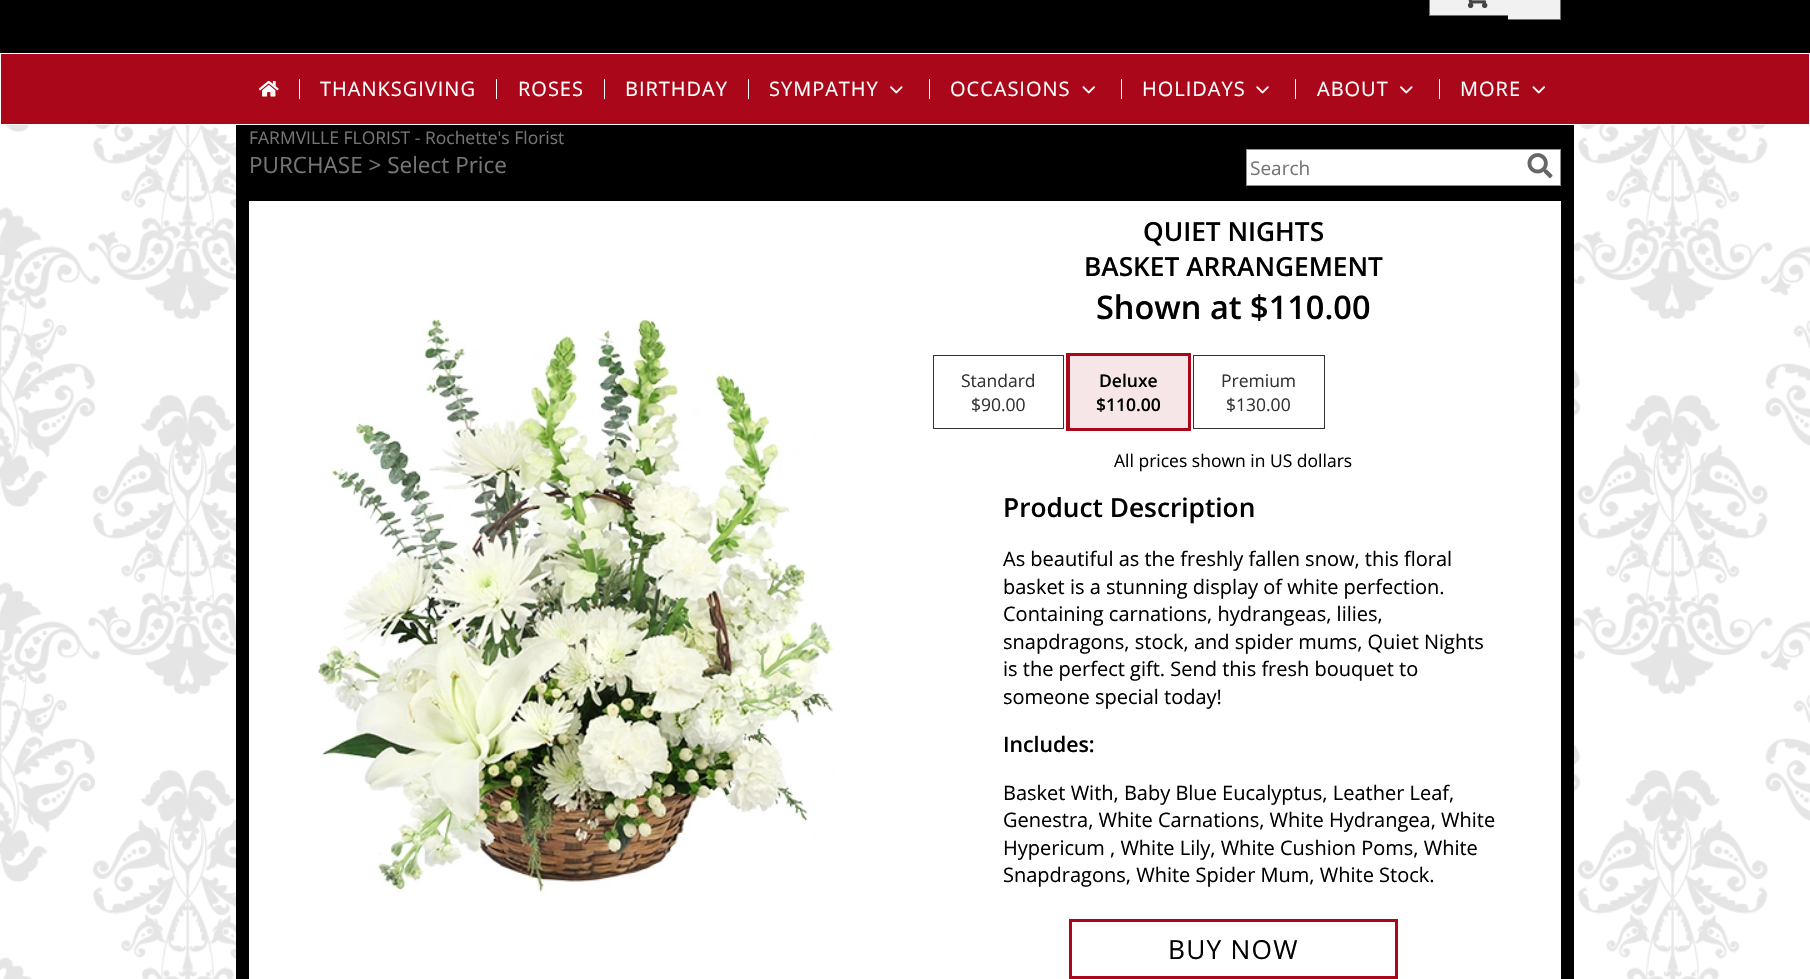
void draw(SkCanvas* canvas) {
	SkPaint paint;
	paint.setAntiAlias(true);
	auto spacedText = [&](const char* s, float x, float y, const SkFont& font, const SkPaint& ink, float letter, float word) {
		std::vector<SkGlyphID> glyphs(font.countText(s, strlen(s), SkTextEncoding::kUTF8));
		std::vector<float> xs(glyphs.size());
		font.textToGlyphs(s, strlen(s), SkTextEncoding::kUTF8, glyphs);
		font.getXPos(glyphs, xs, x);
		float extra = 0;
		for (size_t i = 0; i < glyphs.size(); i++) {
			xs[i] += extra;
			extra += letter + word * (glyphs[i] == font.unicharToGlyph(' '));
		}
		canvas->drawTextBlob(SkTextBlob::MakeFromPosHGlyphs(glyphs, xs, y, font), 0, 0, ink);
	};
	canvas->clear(0xffffffff);
	canvas->drawImageRect(SkImages::DeferredFromEncodedData(SkData::MakeFromFileName("img1.png")), SkRect::MakeXYWH(0, 125, 1810, 854), SkSamplingOptions());
	paint.setColor(0xff000000);
	canvas->drawRect(SkRect::MakeXYWH(236, 125, 1338, 854), paint);
	canvas->drawRect(SkRect::MakeXYWH(0, 0, 1810, 53), paint);
	paint.setColor(0xfff1f1f1);
	canvas->drawRect(SkRect::MakeXYWH(1430, 0, 78, 15), paint);
	paint.setColor(0xff6e6e6e);
	canvas->drawRect(SkRect::MakeXYWH(1429, 15, 79, 1), paint);
	canvas->drawRect(SkRect::MakeXYWH(1429, 0, 1, 16), paint);
	paint.setColor(0xfff1f1f1);
	canvas->drawRect(SkRect::MakeXYWH(1508, 0, 7, 20), paint);
	paint.setColor(0xff6e6e6e);
	canvas->drawRect(SkRect::MakeXYWH(1508, 19, 7, 1), paint);
	paint.setColor(0xfff1f1f1);
	canvas->drawRect(SkRect::MakeXYWH(1515, 0, 45, 19), paint);
	paint.setColor(0xff6e6e6e);
	canvas->drawRect(SkRect::MakeXYWH(1560, 0, 1, 20), paint);
	canvas->drawRect(SkRect::MakeXYWH(1515, 19, 46, 1), paint);
	canvas->drawImageRect(SkImages::DeferredFromEncodedData(SkData::MakeFromFileName("img2.png")), SkRect::MakeXYWH(1467, 0, 21, 9), SkSamplingOptions());
	paint.setColor(0xffab071a);
	canvas->drawRect(SkRect::MakeXYWH(1, 54, 1808, 70), paint);
	canvas->drawImageRect(SkImages::DeferredFromEncodedData(SkData::MakeFromFileName("img3.png")), SkRect::MakeXYWH(259, 81, 20, 16), SkSamplingOptions());
	paint.setColor(0xffffffff);
	canvas->drawRect(SkRect::MakeXYWH(299, 79, 1, 20), paint);
	SkFont f1(fontMgr->matchFamilyStyle("Open Sans", SkFontStyle::Normal()), 20);
	f1.setSubpixel(true);
	spacedText("THANKSGIVING", 320, 96, f1, paint, 1, 0);
	canvas->drawRect(SkRect::MakeXYWH(496, 79, 1, 20), paint);
	spacedText("ROSES", 518, 96, f1, paint, 1, 0);
	canvas->drawRect(SkRect::MakeXYWH(604, 79, 1, 20), paint);
	spacedText("BIRTHDAY", 625, 96, f1, paint, 1, 0);
	canvas->drawRect(SkRect::MakeXYWH(748, 79, 1, 20), paint);
	spacedText("SYMPATHY", 769, 96, f1, paint, 1, 0);
	canvas->drawImageRect(SkImages::DeferredFromEncodedData(SkData::MakeFromFileName("img4.png")), SkRect::MakeXYWH(890, 86, 13, 8), SkSamplingOptions());
	canvas->drawRect(SkRect::MakeXYWH(929, 79, 1, 20), paint);
	spacedText("OCCASIONS", 950, 96, f1, paint, 1, 0);
	canvas->drawImageRect(SkImages::DeferredFromEncodedData(SkData::MakeFromFileName("img5.png")), SkRect::MakeXYWH(1082, 86, 13, 8), SkSamplingOptions());
	canvas->drawRect(SkRect::MakeXYWH(1121, 79, 1, 20), paint);
	spacedText("HOLIDAYS", 1142, 96, f1, paint, 1, 0);
	canvas->drawImageRect(SkImages::DeferredFromEncodedData(SkData::MakeFromFileName("img6.png")), SkRect::MakeXYWH(1256, 86, 13, 8), SkSamplingOptions());
	canvas->drawRect(SkRect::MakeXYWH(1295, 79, 1, 20), paint);
	spacedText("ABOUT", 1317, 96, f1, paint, 1, 0);
	canvas->drawImageRect(SkImages::DeferredFromEncodedData(SkData::MakeFromFileName("img4.png")), SkRect::MakeXYWH(1400, 86, 13, 8), SkSamplingOptions());
	canvas->drawRect(SkRect::MakeXYWH(1439, 79, 1, 20), paint);
	spacedText("MORE", 1460, 96, f1, paint, 1, 0);
	canvas->drawImageRect(SkImages::DeferredFromEncodedData(SkData::MakeFromFileName("img5.png")), SkRect::MakeXYWH(1532, 86, 13, 8), SkSamplingOptions());
	SkFont f2(fontMgr->matchFamilyStyle("Open Sans", SkFontStyle::Normal()), 17.5);
	f2.setSubpixel(true);
	paint.setColor(0xff757575);
	canvas->drawString("FARMVILLE FLORIST - Rochette's Florist", 249, 144, f2, paint);
	SkFont f3(fontMgr->matchFamilyStyle("Open Sans", SkFontStyle::Normal()), 22.5);
	f3.setSubpixel(true);
	canvas->drawString("PURCHASE > Select Price", 249, 173, f3, paint);
	paint.setColor(0xffffffff);
	canvas->drawRect(SkRect::MakeXYWH(1246.5, 149.5, 314, 36), paint);
	paint.setStroke(true);
	paint.setStrokeWidth(1);
	paint.setColor(0xff919191);
	canvas->drawRect(SkRect::MakeXYWH(1246.5, 149.5, 314, 36), paint);
	SkFont f4(fontMgr->matchFamilyStyle("Open Sans", SkFontStyle::Normal()), 19);
	f4.setSubpixel(true);
	paint.setStroke(false);
	paint.setColor(0xff757575);
	canvas->drawString("Search", 1250, 175, f4, paint);
	canvas->drawImageRect(SkImages::DeferredFromEncodedData(SkData::MakeFromFileName("img7.png")), SkRect::MakeXYWH(1527, 153, 26, 26), SkSamplingOptions());
	paint.setColor(0xffffffff);
	canvas->drawRect(SkRect::MakeXYWH(249, 201, 1312, 778), paint);
	canvas->drawImageRect(SkImages::DeferredFromEncodedData(SkData::MakeFromFileName("img8.png")), SkRect::MakeXYWH(317, 318, 518, 575), SkSamplingOptions());
	SkFont f5(fontMgr->matchFamilyStyle("Open Sans", SkFontStyle(600, SkFontStyle::kNormal_Width, SkFontStyle::kUpright_Slant)), 26.25);
	f5.setSubpixel(true);
	paint.setColor(0xff000000);
	canvas->drawString("QUIET NIGHTS", 1143, 241, f5, paint);
	canvas->drawString("BASKET ARRANGEMENT", 1084, 276, f5, paint);
	SkFont f6(fontMgr->matchFamilyStyle("Open Sans", SkFontStyle(600, SkFontStyle::kNormal_Width, SkFontStyle::kUpright_Slant)), 32.5);
	f6.setSubpixel(true);
	canvas->drawString("Shown at $110.00", 1096, 319, f6, paint);
	paint.setStroke(true);
	paint.setColor(0xff333333);
	canvas->drawRect(SkRect::MakeXYWH(933.5, 355.5, 130, 73), paint);
	paint.setStroke(false);
	canvas->drawString("Standard", 961, 387, f2, paint);
	canvas->drawString("$90.00", 971, 411, f2, paint);
	paint.setStroke(true);
	paint.setStrokeWidth(4);
	paint.setColor(0xffab071a);
	canvas->drawRect(SkRect::MakeXYWH(1068, 355, 121, 74), paint);
	paint.setStroke(false);
	paint.setColor(0xfff6e6e8);
	canvas->drawRect(SkRect::MakeXYWH(1070, 356, 118, 72), paint);
	SkFont f7(fontMgr->matchFamilyStyle("Open Sans", SkFontStyle(600, SkFontStyle::kNormal_Width, SkFontStyle::kUpright_Slant)), 17.5);
	f7.setSubpixel(true);
	paint.setColor(0xff000000);
	canvas->drawString("Deluxe", 1099, 387, f7, paint);
	canvas->drawString("$110.00", 1096, 411, f7, paint);
	paint.setStroke(true);
	paint.setStrokeWidth(1);
	paint.setColor(0xff333333);
	canvas->drawRect(SkRect::MakeXYWH(1193.5, 355.5, 131, 73), paint);
	paint.setStroke(false);
	canvas->drawString("Premium", 1221, 387, f2, paint);
	canvas->drawString("$130.00", 1226, 411, f2, paint);
	paint.setColor(0xff000000);
	canvas->drawString("All prices shown in US dollars", 1114, 467, f2, paint);
	canvas->drawString("Product Description", 1003, 517, f5, paint);
	canvas->drawString("As beautiful as the freshly fallen snow, this floral", 1003, 566, f1, paint);
	canvas->drawString("basket is a stunning display of white perfection.", 1003, 594, f1, paint);
	canvas->drawString("Containing carnations, hydrangeas, lilies,", 1003, 621, f1, paint);
	canvas->drawString("snapdragons, stock, and spider mums, Quiet Nights", 1003, 649, f1, paint);
	canvas->drawString("is the perfect gift. Send this fresh bouquet to", 1003, 676, f1, paint);
	canvas->drawString("someone special today!", 1003, 704, f1, paint);
	SkFont f8(fontMgr->matchFamilyStyle("Open Sans", SkFontStyle(600, SkFontStyle::kNormal_Width, SkFontStyle::kUpright_Slant)), 21.25);
	f8.setSubpixel(true);
	canvas->drawString("Includes:", 1003, 752, f8, paint);
	canvas->drawString("Basket With, Baby Blue Eucalyptus, Leather Leaf,", 1003, 800, f1, paint);
	canvas->drawString("Genestra, White Carnations, White Hydrangea, White", 1003, 827, f1, paint);
	canvas->drawString("Hypericum , White Lily, White Cushion Poms, White", 1003, 855, f1, paint);
	canvas->drawString("Snapdragons, White Spider Mum, White Stock.", 1003, 882, f1, paint);
	paint.setStroke(true);
	paint.setStrokeWidth(3);
	paint.setColor(0xffab071a);
	canvas->drawRect(SkRect::MakeXYWH(1070.5, 920.5, 326, 57), paint);
	SkFont f9(fontMgr->matchFamilyStyle("Open Sans", SkFontStyle::Normal()), 26.25);
	f9.setSubpixel(true);
	paint.setStroke(false);
	paint.setColor(0xff000000);
	spacedText("BUY NOW", 1168, 959, f9, paint, 1.25, 0);
}
